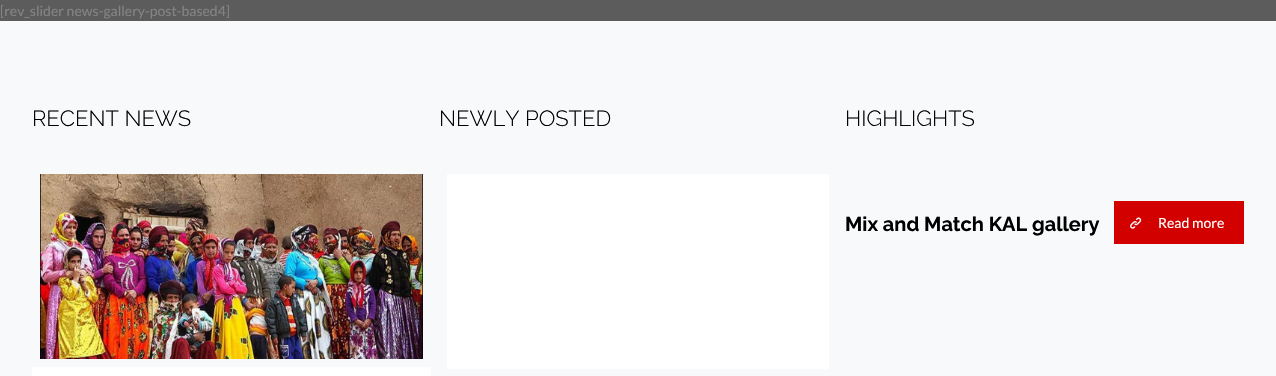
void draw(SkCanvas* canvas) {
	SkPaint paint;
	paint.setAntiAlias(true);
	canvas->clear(0xfff7f9fa);
	paint.setColor(0xff5c5c5c);
	canvas->drawRect(SkRect::MakeXYWH(0, 0, 1276, 21), paint);
	SkFont f1(fontMgr->matchFamilyStyle("Lato", SkFontStyle::Normal()), 14);
	f1.setSubpixel(true);
	paint.setColor(0xff848484);
	canvas->drawString("[rev_slider news-gallery-post-based4]", 0, 16, f1, paint);
	SkFont f2(fontMgr->matchFamilyStyle("Raleway", SkFontStyle(300, SkFontStyle::kNormal_Width, SkFontStyle::kUpright_Slant)), 22);
	f2.setSubpixel(true);
	paint.setColor(0xff000000);
	canvas->drawString("RECENT NEWS", 32, 126, f2, paint);
	paint.setColor(0xffffffff);
	canvas->drawRect(SkRect::MakeXYWH(32, 367, 399, 9), paint);
	canvas->drawImageRect(SkImages::DeferredFromEncodedData(SkData::MakeFromFileName("img1.png")), SkRect::MakeXYWH(40, 174, 383, 185), SkSamplingOptions());
	paint.setColor(0xff000000);
	canvas->drawString("NEWLY POSTED", 439, 126, f2, paint);
	paint.setColor(0xffffffff);
	canvas->drawRect(SkRect::MakeXYWH(447, 174, 382, 195), paint);
	paint.setColor(0xff000000);
	canvas->drawString("HIGHLIGHTS", 845, 126, f2, paint);
	SkFont f3(fontMgr->matchFamilyStyle("Raleway", SkFontStyle::Bold()), 20);
	f3.setSubpixel(true);
	canvas->drawString("Mix and Match KAL gallery", 845, 231, f3, paint);
	paint.setColor(0xffd30000);
	canvas->drawRect(SkRect::MakeXYWH(1114, 201, 130, 43), paint);
	canvas->drawImageRect(SkImages::DeferredFromEncodedData(SkData::MakeFromFileName("img2.png")), SkRect::MakeXYWH(1130, 217, 12, 12), SkSamplingOptions());
	paint.setColor(0xffffffff);
	canvas->drawString("Read more", 1158, 228, f1, paint);
}
